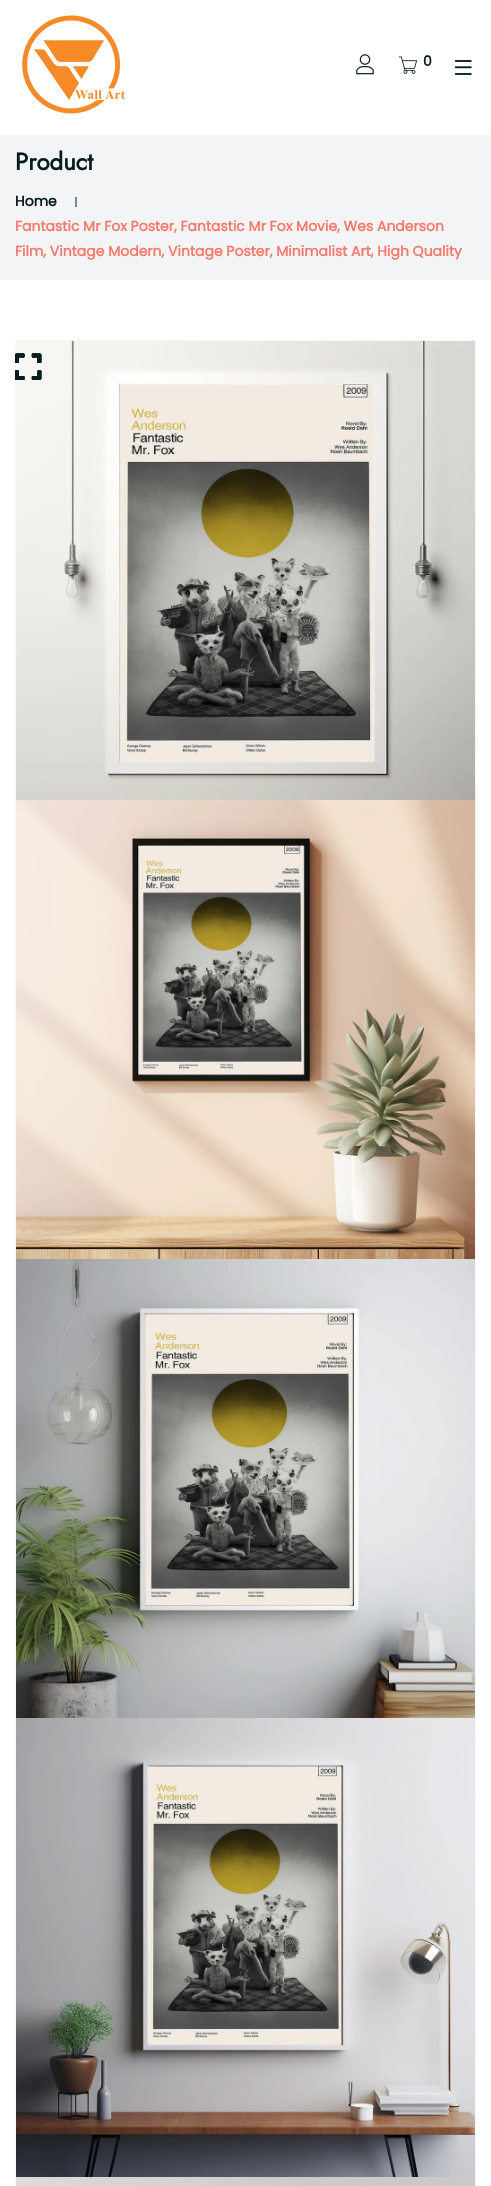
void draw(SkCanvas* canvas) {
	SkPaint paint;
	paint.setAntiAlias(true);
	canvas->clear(0xffffffff);
	canvas->drawImageRect(SkImages::DeferredFromEncodedData(SkData::MakeFromFileName("img1.png")), SkRect::MakeXYWH(22, 15, 104, 99), SkSamplingOptions());
	canvas->drawImageRect(SkImages::DeferredFromEncodedData(SkData::MakeFromFileName("img2.png")), SkRect::MakeXYWH(356, 54, 18, 21), SkSamplingOptions());
	canvas->drawImageRect(SkImages::DeferredFromEncodedData(SkData::MakeFromFileName("img3.png")), SkRect::MakeXYWH(399, 56, 18, 18), SkSamplingOptions());
	SkFont f1(fontMgr->matchFamilyStyle("Poppins", SkFontStyle::Bold()), 14);
	f1.setSubpixel(true);
	paint.setColor(0xff071c1f);
	canvas->drawString("0", 423, 66, f1, paint);
	canvas->drawImageRect(SkImages::DeferredFromEncodedData(SkData::MakeFromFileName("img4.png")), SkRect::MakeXYWH(454, 60, 18, 15), SkSamplingOptions());
	paint.setColor(0xfff2f4f5);
	canvas->drawRect(SkRect::MakeXYWH(0, 135, 491, 145), paint);
	SkFont f2(fontMgr->matchFamilyStyle("Jost", SkFontStyle::Bold()), 24);
	f2.setSubpixel(true);
	paint.setColor(0xff071c1f);
	canvas->drawString("Product", 15, 170, f2, paint);
	canvas->drawString("Home", 15, 206, f1, paint);
	paint.setColor(0xff7d888a);
	canvas->drawRect(SkRect::MakeXYWH(75, 197, 2, 10), paint);
	paint.setColor(0xfff8796c);
	canvas->drawString("Fantastic Mr Fox Poster, Fantastic Mr Fox Movie, Wes Anderson", 15, 231, f1, paint);
	canvas->drawString("Film, Vintage Modern, Vintage Poster, Minimalist Art, High Quality", 15, 256, f1, paint);
	paint.setStroke(true);
	paint.setStrokeWidth(1);
	paint.setColor(0xfff6f6f6);
	canvas->drawRect(SkRect::MakeXYWH(15.5, 340.5, 460, 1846), paint);
	canvas->drawImageRect(SkImages::DeferredFromEncodedData(SkData::MakeFromFileName("img5.png")), SkRect::MakeXYWH(16, 341, 459, 459), SkSamplingOptions());
	canvas->drawImageRect(SkImages::DeferredFromEncodedData(SkData::MakeFromFileName("img6.png")), SkRect::MakeXYWH(15, 353, 27, 27), SkSamplingOptions());
	canvas->drawImageRect(SkImages::DeferredFromEncodedData(SkData::MakeFromFileName("img7.png")), SkRect::MakeXYWH(15, 353, 27, 27), SkSamplingOptions());
	canvas->drawImageRect(SkImages::DeferredFromEncodedData(SkData::MakeFromFileName("img8.png")), SkRect::MakeXYWH(16, 800, 459, 459), SkSamplingOptions());
	canvas->drawImageRect(SkImages::DeferredFromEncodedData(SkData::MakeFromFileName("img9.png")), SkRect::MakeXYWH(15, 353, 27, 27), SkSamplingOptions());
	canvas->drawImageRect(SkImages::DeferredFromEncodedData(SkData::MakeFromFileName("img10.png")), SkRect::MakeXYWH(16, 1259, 459, 459), SkSamplingOptions());
	canvas->drawImageRect(SkImages::DeferredFromEncodedData(SkData::MakeFromFileName("img11.png")), SkRect::MakeXYWH(15, 353, 27, 27), SkSamplingOptions());
	canvas->drawImageRect(SkImages::DeferredFromEncodedData(SkData::MakeFromFileName("img12.png")), SkRect::MakeXYWH(16, 1718, 459, 459), SkSamplingOptions());
	canvas->drawImageRect(SkImages::DeferredFromEncodedData(SkData::MakeFromFileName("img13.png")), SkRect::MakeXYWH(15, 353, 27, 27), SkSamplingOptions());
	canvas->drawImageRect(SkImages::DeferredFromEncodedData(SkData::MakeFromFileName("img14.png")), SkRect::MakeXYWH(16, 2177, 459, 9), SkSamplingOptions());
}
